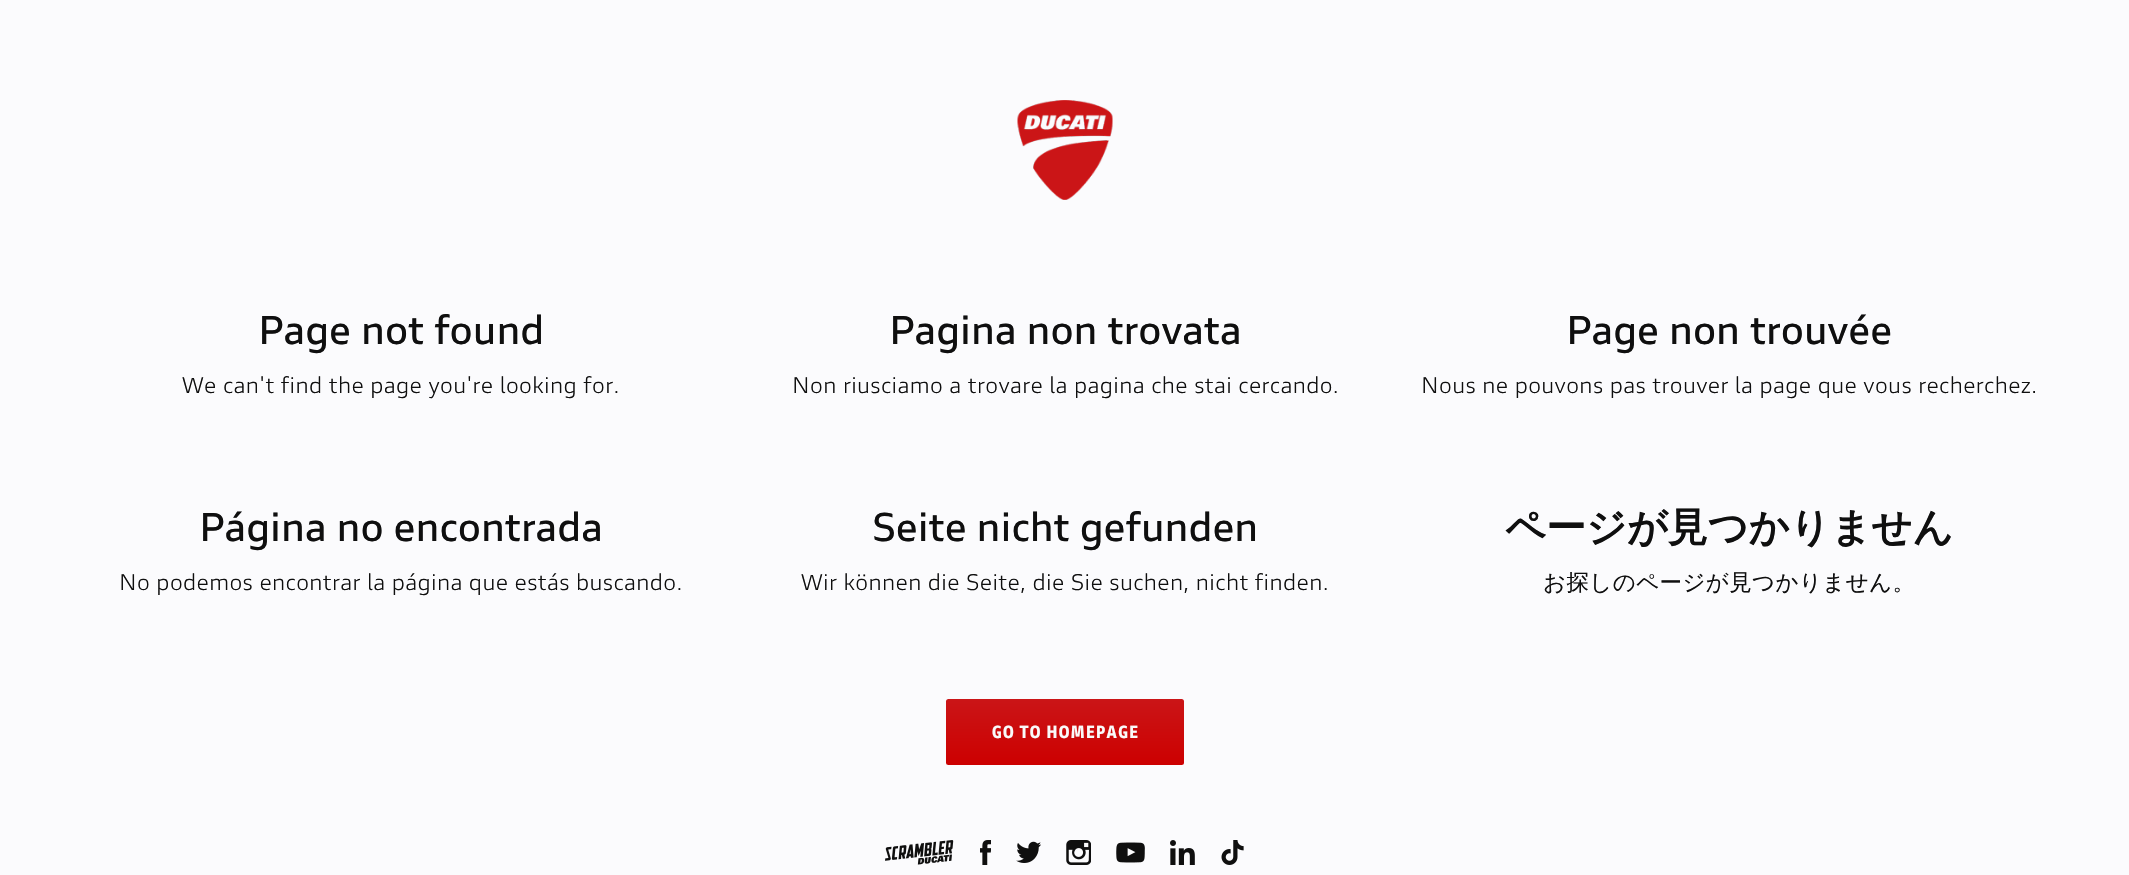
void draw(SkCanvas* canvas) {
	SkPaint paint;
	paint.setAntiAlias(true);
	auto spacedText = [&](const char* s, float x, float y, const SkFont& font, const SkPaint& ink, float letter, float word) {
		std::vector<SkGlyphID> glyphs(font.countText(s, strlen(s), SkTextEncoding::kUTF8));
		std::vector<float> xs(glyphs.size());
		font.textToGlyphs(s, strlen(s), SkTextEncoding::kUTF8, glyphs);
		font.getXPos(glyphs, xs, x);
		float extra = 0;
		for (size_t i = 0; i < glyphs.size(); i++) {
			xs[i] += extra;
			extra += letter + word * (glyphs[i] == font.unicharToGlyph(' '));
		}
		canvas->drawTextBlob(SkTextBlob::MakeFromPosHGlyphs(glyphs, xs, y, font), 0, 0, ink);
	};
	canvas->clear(0xfffbfbfd);
	canvas->drawImageRect(SkImages::DeferredFromEncodedData(SkData::MakeFromFileName("img1.png")), SkRect::MakeXYWH(1017, 100, 96, 100), SkSamplingOptions());
	SkFont f1(fontMgr->matchFamilyStyle("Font", SkFontStyle::Bold()), 40);
	f1.setSubpixel(true);
	paint.setColor(0xff0f0f0f);
	canvas->drawString("Page not found", 258, 344, f1, paint);
	SkFont f2(fontMgr->matchFamilyStyle("Font", SkFontStyle::Normal()), 22.5);
	f2.setSubpixel(true);
	spacedText("We can't find the page you're looking for.", 182, 393, f2, paint, 0.38, 0);
	canvas->drawString("Pagina non trovata", 889, 344, f1, paint);
	spacedText("Non riusciamo a trovare la pagina che stai cercando.", 792, 393, f2, paint, 0.38, 0);
	canvas->drawString("Page non trouvée", 1566, 344, f1, paint);
	spacedText("Nous ne pouvons pas trouver la page que vous recherchez.", 1421, 393, f2, paint, 0.38, 0);
	canvas->drawString("Página no encontrada", 199, 541, f1, paint);
	spacedText("No podemos encontrar la página que estás buscando.", 119, 590, f2, paint, 0.38, 0);
	canvas->drawString("Seite nicht gefunden", 872, 541, f1, paint);
	spacedText("Wir können die Seite, die Sie suchen, nicht finden.", 801, 590, f2, paint, 0.38, 0);
	SkFont f3(fontMgr->matchFamilyStyle("WenQuanYi Zen Hei", SkFontStyle::Bold()), 40);
	f3.setSubpixel(true);
	canvas->drawString("ページが見つかりません", 1505, 541, f3, paint);
	SkFont f4(fontMgr->matchFamilyStyle("WenQuanYi Zen Hei", SkFontStyle(500, SkFontStyle::kNormal_Width, SkFontStyle::kUpright_Slant)), 22.5);
	f4.setSubpixel(true);
	spacedText("お探しのページが見つかりません。", 1543, 590, f4, paint, 0.38, 0);
	{
		const SkColor colors[] = {0xffcb1517, 0xffcc0000};
		const float stops[] = {0, 1};
		const SkPoint ends[] = {{1065, 699}, {1065, 765}};
		paint.setShader(SkGradientShader::MakeLinear(ends, colors, stops, 2, SkTileMode::kClamp));
		paint.setAlpha(255);
	}
	canvas->drawRoundRect(SkRect::MakeXYWH(946, 699, 238, 66), 2.5, 2.5, paint);
	SkFont f5(fontMgr->matchFamilyStyle("Font", SkFontStyle(800, SkFontStyle::kNormal_Width, SkFontStyle::kUpright_Slant)), 17.5);
	f5.setSubpixel(true);
	paint.setShader(nullptr);
	paint.setColor(0xfffafafa);
	spacedText("GO TO HOMEPAGE", 992, 738, f5, paint, 1.4, 0);
	canvas->drawImageRect(SkImages::DeferredFromEncodedData(SkData::MakeFromFileName("img2.png")), SkRect::MakeXYWH(885, 840, 69, 25), SkSamplingOptions());
	canvas->drawImageRect(SkImages::DeferredFromEncodedData(SkData::MakeFromFileName("img3.png")), SkRect::MakeXYWH(980, 840, 11, 25), SkSamplingOptions());
	canvas->drawImageRect(SkImages::DeferredFromEncodedData(SkData::MakeFromFileName("img4.png")), SkRect::MakeXYWH(1016, 841, 25, 22), SkSamplingOptions());
	canvas->drawImageRect(SkImages::DeferredFromEncodedData(SkData::MakeFromFileName("img5.png")), SkRect::MakeXYWH(1066, 840, 25, 25), SkSamplingOptions());
	canvas->drawImageRect(SkImages::DeferredFromEncodedData(SkData::MakeFromFileName("img6.png")), SkRect::MakeXYWH(1116, 842, 29, 21), SkSamplingOptions());
	canvas->drawImageRect(SkImages::DeferredFromEncodedData(SkData::MakeFromFileName("img7.png")), SkRect::MakeXYWH(1170, 840, 25, 25), SkSamplingOptions());
	canvas->drawImageRect(SkImages::DeferredFromEncodedData(SkData::MakeFromFileName("img8.png")), SkRect::MakeXYWH(1221, 840, 23, 25), SkSamplingOptions());
}
